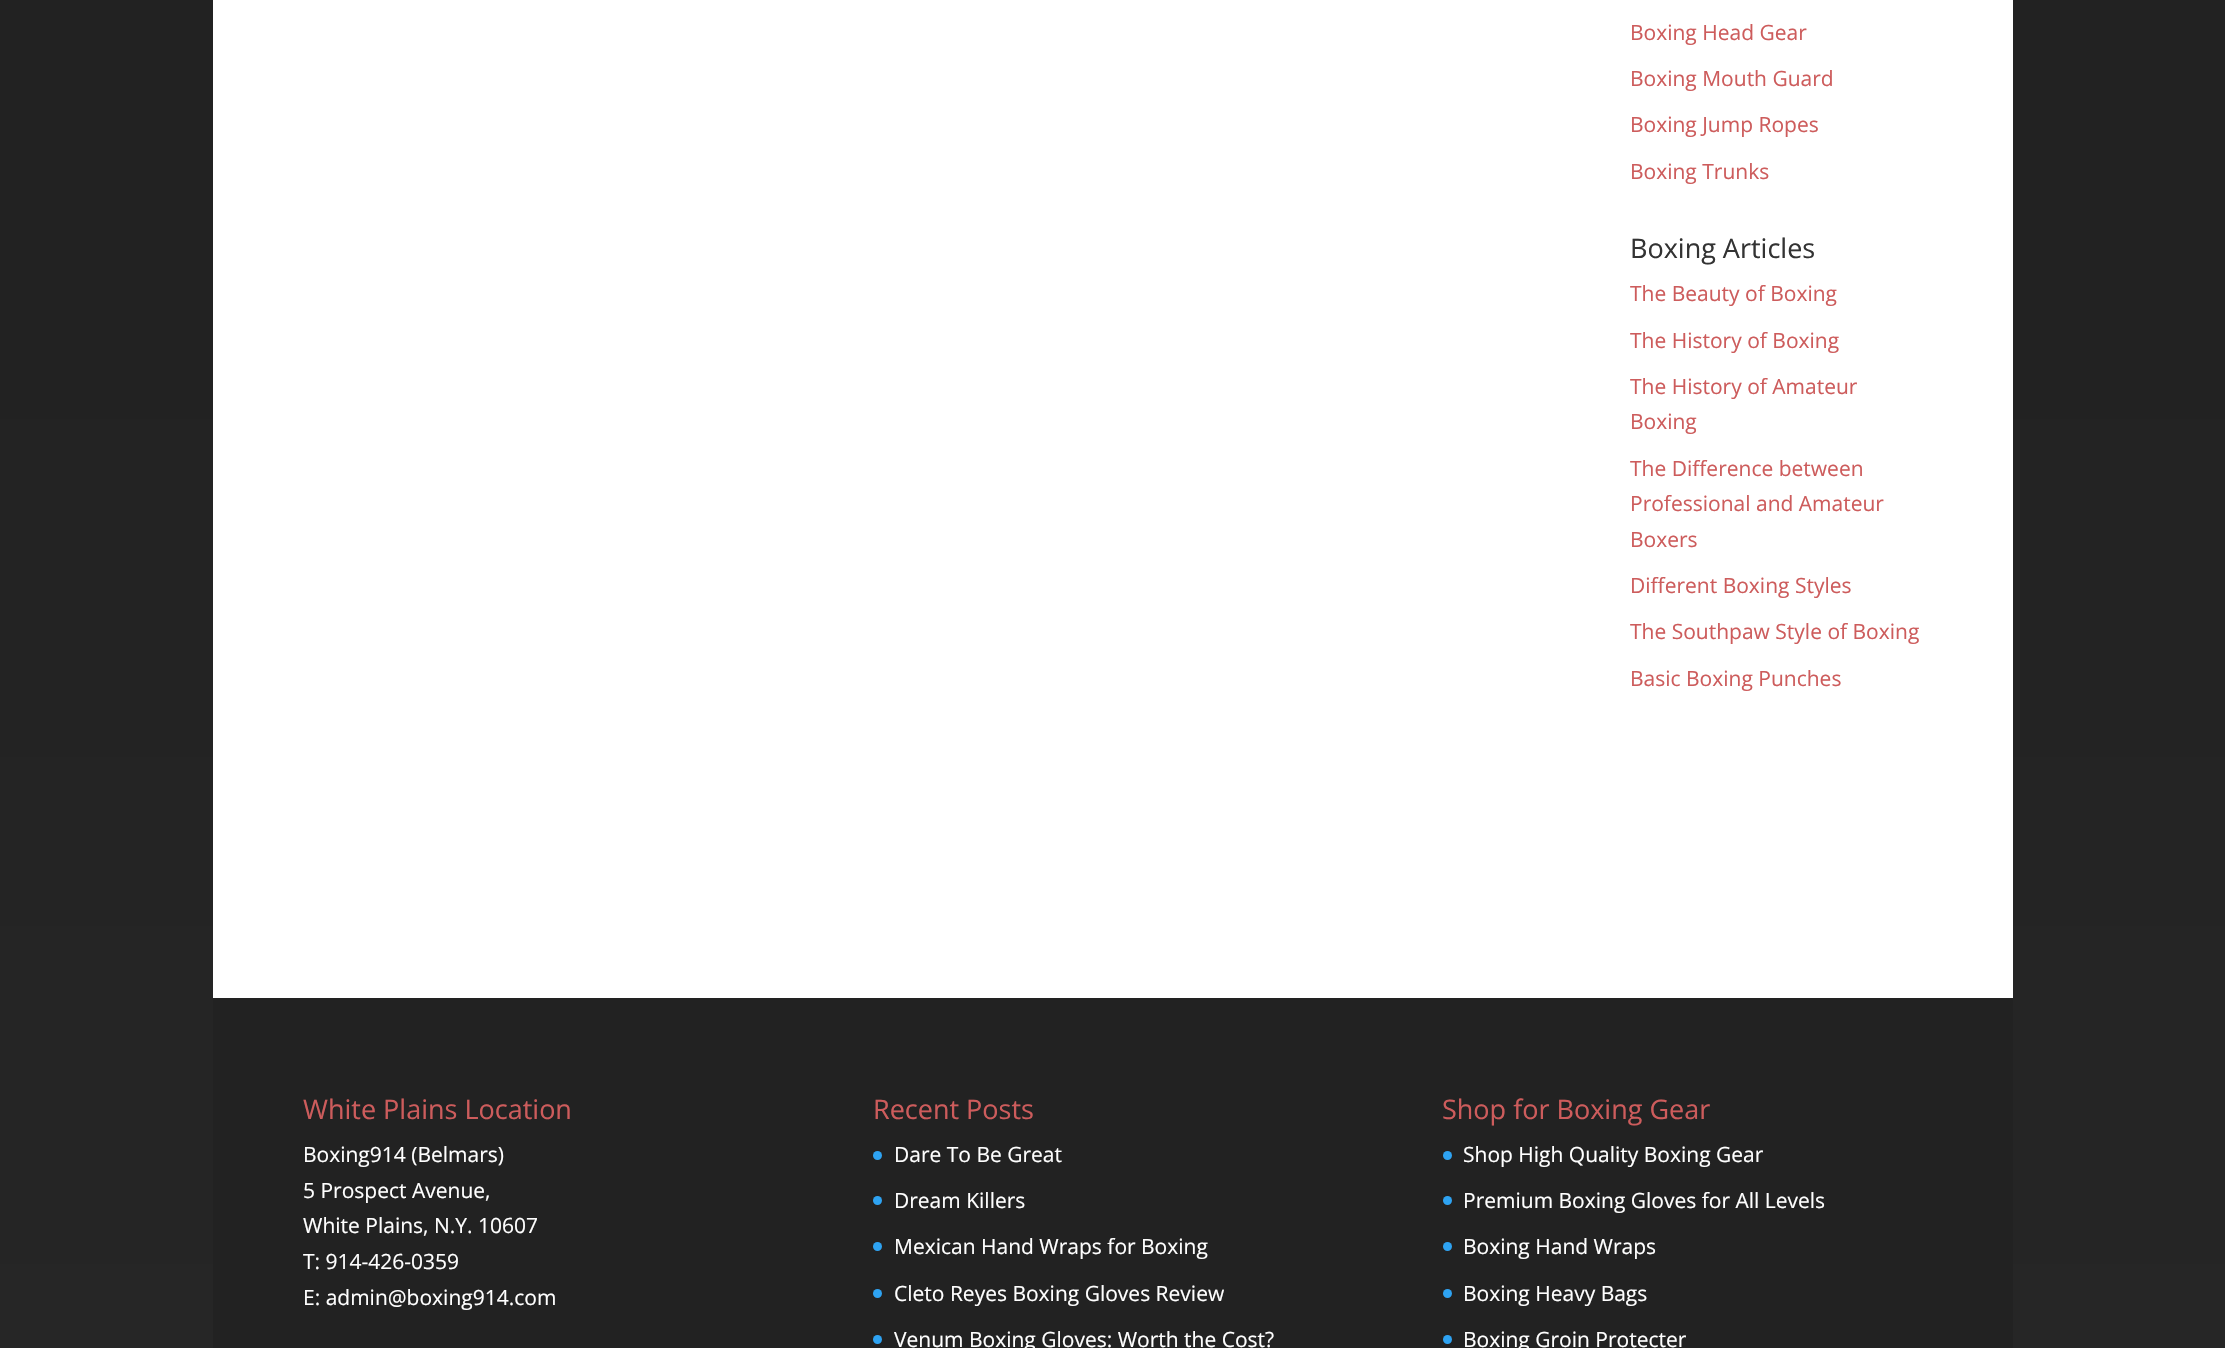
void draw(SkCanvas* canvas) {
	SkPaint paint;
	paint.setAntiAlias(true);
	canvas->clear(0xffffffff);
	canvas->drawImageRect(SkImages::DeferredFromEncodedData(SkData::MakeFromFileName("img1.png")), SkRect::MakeXYWH(0, 0, 2225, 1348), SkSamplingOptions());
	paint.setColor(0xffffffff);
	canvas->drawRect(SkRect::MakeXYWH(213, 0, 1800, 998), paint);
	SkFont f1(fontMgr->matchFamilyStyle("Open Sans", SkFontStyle::Normal()), 21);
	f1.setSubpixel(true);
	paint.setColor(0xffcd5c5c);
	canvas->drawString("Boxing Head Gear", 1630, 40, f1, paint);
	canvas->drawString("Boxing Mouth Guard", 1630, 86, f1, paint);
	canvas->drawString("Boxing Jump Ropes", 1630, 132, f1, paint);
	canvas->drawString("Boxing Trunks", 1630, 179, f1, paint);
	SkFont f2(fontMgr->matchFamilyStyle("Open Sans", SkFontStyle::Normal()), 27);
	f2.setSubpixel(true);
	paint.setColor(0xff333333);
	canvas->drawString("Boxing Articles", 1630, 258, f2, paint);
	paint.setColor(0xffcd5c5c);
	canvas->drawString("The Beauty of Boxing", 1630, 301, f1, paint);
	canvas->drawString("The History of Boxing", 1630, 348, f1, paint);
	canvas->drawString("The History of Amateur", 1630, 394, f1, paint);
	canvas->drawString("Boxing", 1630, 429, f1, paint);
	canvas->drawString("The Difference between", 1630, 476, f1, paint);
	canvas->drawString("Professional and Amateur", 1630, 511, f1, paint);
	canvas->drawString("Boxers", 1630, 547, f1, paint);
	canvas->drawString("Different Boxing Styles", 1630, 593, f1, paint);
	canvas->drawString("The Southpaw Style of Boxing", 1630, 639, f1, paint);
	canvas->drawString("Basic Boxing Punches", 1630, 686, f1, paint);
	paint.setColor(0xff222222);
	canvas->drawRect(SkRect::MakeXYWH(213, 998, 1800, 350), paint);
	paint.setColor(0xffcd5c5c);
	canvas->drawString("White Plains Location", 303, 1119, f2, paint);
	paint.setColor(0xffffffff);
	canvas->drawString("Boxing914 (Belmars)", 303, 1162, f1, paint);
	canvas->drawString("5 Prospect Avenue,", 303, 1198, f1, paint);
	canvas->drawString("White Plains, N.Y. 10607", 303, 1233, f1, paint);
	canvas->drawString("T: 914-426-0359", 303, 1269, f1, paint);
	canvas->drawString("E: admin@boxing914.com", 303, 1305, f1, paint);
	paint.setColor(0xffcd5c5c);
	canvas->drawString("Recent Posts", 873, 1119, f2, paint);
	paint.setColor(0xff2ea3f2);
	canvas->drawCircle(877.5, 1155.5, 4.5, paint);
	paint.setColor(0xffffffff);
	canvas->drawString("Dare To Be Great", 894, 1162, f1, paint);
	paint.setColor(0xff2ea3f2);
	canvas->drawCircle(877.5, 1200.5, 4.5, paint);
	paint.setColor(0xffffffff);
	canvas->drawString("Dream Killers", 894, 1208, f1, paint);
	paint.setColor(0xff2ea3f2);
	canvas->drawCircle(877.5, 1246.5, 4.5, paint);
	paint.setColor(0xffffffff);
	canvas->drawString("Mexican Hand Wraps for Boxing", 894, 1254, f1, paint);
	paint.setColor(0xff2ea3f2);
	canvas->drawCircle(877.5, 1293.5, 4.5, paint);
	paint.setColor(0xffffffff);
	canvas->drawString("Cleto Reyes Boxing Gloves Review", 894, 1301, f1, paint);
	paint.setColor(0xff2ea3f2);
	canvas->drawCircle(877.5, 1339.5, 4.5, paint);
	paint.setColor(0xffffffff);
	canvas->drawString("Venum Boxing Gloves: Worth the Cost?", 894, 1347, f1, paint);
	paint.setColor(0xffcd5c5c);
	canvas->drawString("Shop for Boxing Gear", 1442, 1119, f2, paint);
	paint.setColor(0xff2ea3f2);
	canvas->drawCircle(1447.5, 1155.5, 4.5, paint);
	paint.setColor(0xffffffff);
	canvas->drawString("Shop High Quality Boxing Gear", 1463, 1162, f1, paint);
	paint.setColor(0xff2ea3f2);
	canvas->drawCircle(1447.5, 1200.5, 4.5, paint);
	paint.setColor(0xffffffff);
	canvas->drawString("Premium Boxing Gloves for All Levels", 1463, 1208, f1, paint);
	paint.setColor(0xff2ea3f2);
	canvas->drawCircle(1447.5, 1246.5, 4.5, paint);
	paint.setColor(0xffffffff);
	canvas->drawString("Boxing Hand Wraps", 1463, 1254, f1, paint);
	paint.setColor(0xff2ea3f2);
	canvas->drawCircle(1447.5, 1293.5, 4.5, paint);
	paint.setColor(0xffffffff);
	canvas->drawString("Boxing Heavy Bags", 1463, 1301, f1, paint);
	paint.setColor(0xff2ea3f2);
	canvas->drawCircle(1447.5, 1339.5, 4.5, paint);
	paint.setColor(0xffffffff);
	canvas->drawString("Boxing Groin Protecter", 1463, 1347, f1, paint);
}
